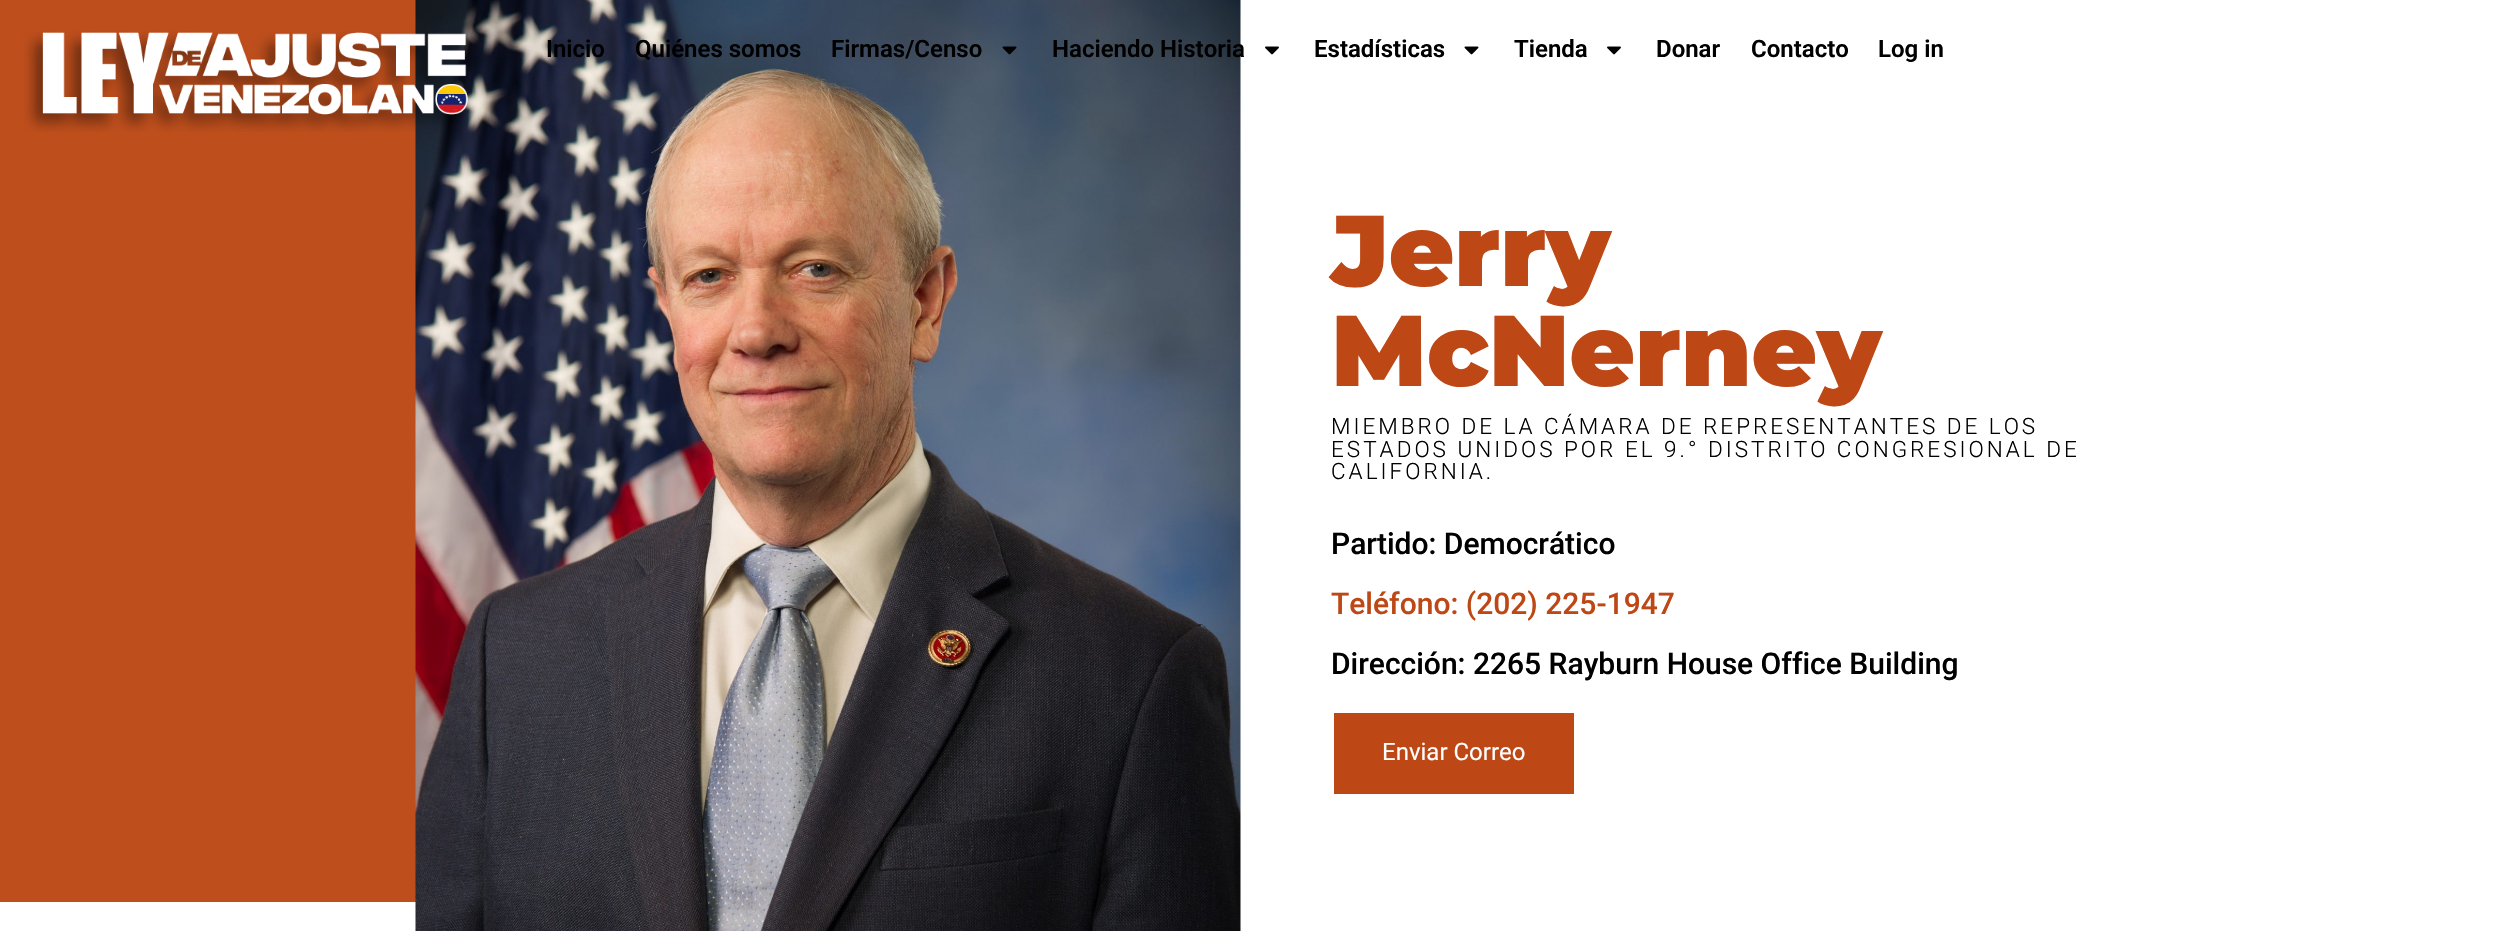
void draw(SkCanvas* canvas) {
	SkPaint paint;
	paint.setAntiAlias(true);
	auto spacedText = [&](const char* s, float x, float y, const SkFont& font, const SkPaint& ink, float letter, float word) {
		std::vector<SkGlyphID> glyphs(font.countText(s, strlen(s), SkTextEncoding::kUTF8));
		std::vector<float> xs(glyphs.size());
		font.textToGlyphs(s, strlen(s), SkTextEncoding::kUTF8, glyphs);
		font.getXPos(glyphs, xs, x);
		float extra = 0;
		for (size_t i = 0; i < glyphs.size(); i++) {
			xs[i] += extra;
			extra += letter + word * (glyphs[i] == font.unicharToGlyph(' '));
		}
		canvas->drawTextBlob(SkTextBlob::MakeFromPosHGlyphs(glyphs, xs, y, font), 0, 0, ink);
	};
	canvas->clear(0xffffffff);
	paint.setColor(0xffbe4e1c);
	canvas->drawRect(SkRect::MakeXYWH(0, 0, 416, 902), paint);
	canvas->drawImageRect(SkImages::DeferredFromEncodedData(SkData::MakeFromFileName("img5.png")), SkRect::MakeXYWH(415, 0, 826, 931), SkSamplingOptions());
	canvas->drawImageRect(SkImages::DeferredFromEncodedData(SkData::MakeFromFileName("img1.png")), SkRect::MakeXYWH(24, 31, 444, 101), SkSamplingOptions());
	SkFont f1(fontMgr->matchFamilyStyle("Roboto", SkFontStyle(600, SkFontStyle::kNormal_Width, SkFontStyle::kUpright_Slant)), 24);
	f1.setSubpixel(true);
	paint.setColor(0xff000000);
	canvas->drawString("Inicio", 546, 57, f1, paint);
	canvas->drawString("Quiénes somos", 635, 57, f1, paint);
	canvas->drawString("Firmas/Censo", 831, 57, f1, paint);
	canvas->drawImageRect(SkImages::DeferredFromEncodedData(SkData::MakeFromFileName("img2.png")), SkRect::MakeXYWH(1002, 46, 15, 9), SkSamplingOptions());
	canvas->drawString("Haciendo Historia", 1052, 57, f1, paint);
	canvas->drawImageRect(SkImages::DeferredFromEncodedData(SkData::MakeFromFileName("img3.png")), SkRect::MakeXYWH(1265, 46, 14, 9), SkSamplingOptions());
	canvas->drawString("Estadísticas", 1314, 57, f1, paint);
	canvas->drawImageRect(SkImages::DeferredFromEncodedData(SkData::MakeFromFileName("img4.png")), SkRect::MakeXYWH(1464, 46, 15, 9), SkSamplingOptions());
	canvas->drawString("Tienda", 1514, 57, f1, paint);
	canvas->drawImageRect(SkImages::DeferredFromEncodedData(SkData::MakeFromFileName("img3.png")), SkRect::MakeXYWH(1607, 46, 14, 9), SkSamplingOptions());
	canvas->drawString("Donar", 1656, 57, f1, paint);
	canvas->drawString("Contacto", 1751, 57, f1, paint);
	canvas->drawString("Log in", 1878, 57, f1, paint);
	SkFont f2(fontMgr->matchFamilyStyle("Montserrat", SkFontStyle(900, SkFontStyle::kNormal_Width, SkFontStyle::kUpright_Slant)), 100.5);
	f2.setSubpixel(true);
	paint.setColor(0xffbd4715);
	canvas->drawString("Jerry", 1331, 286, f2, paint);
	canvas->drawString("McNerney", 1331, 386, f2, paint);
	SkFont f3(fontMgr->matchFamilyStyle("Roboto", SkFontStyle(300, SkFontStyle::kNormal_Width, SkFontStyle::kUpright_Slant)), 22.5);
	f3.setSubpixel(true);
	paint.setColor(0xff000000);
	spacedText("MIEMBRO DE LA CÁMARA DE REPRESENTANTES DE LOS", 1331, 434, f3, paint, 3, 0);
	spacedText("ESTADOS UNIDOS POR EL 9.° DISTRITO CONGRESIONAL DE", 1331, 457, f3, paint, 3, 0);
	spacedText("CALIFORNIA.", 1331, 479, f3, paint, 3, 0);
	SkFont f4(fontMgr->matchFamilyStyle("Roboto", SkFontStyle(500, SkFontStyle::kNormal_Width, SkFontStyle::kUpright_Slant)), 30);
	f4.setSubpixel(true);
	canvas->drawString("Partido: Democrático", 1331, 554, f4, paint);
	paint.setColor(0xffbd4715);
	canvas->drawString("Teléfono: (202) 225-1947", 1331, 614, f4, paint);
	paint.setColor(0xff000000);
	canvas->drawString("Dirección: 2265 Rayburn House Office Building", 1331, 674, f4, paint);
	paint.setColor(0xffbd4715);
	canvas->drawRect(SkRect::MakeXYWH(1334, 713, 240, 81), paint);
	SkFont f5(fontMgr->matchFamilyStyle("Roboto", SkFontStyle::Normal()), 24);
	f5.setSubpixel(true);
	paint.setColor(0xffffffff);
	canvas->drawString("Enviar Correo", 1382, 760, f5, paint);
}
